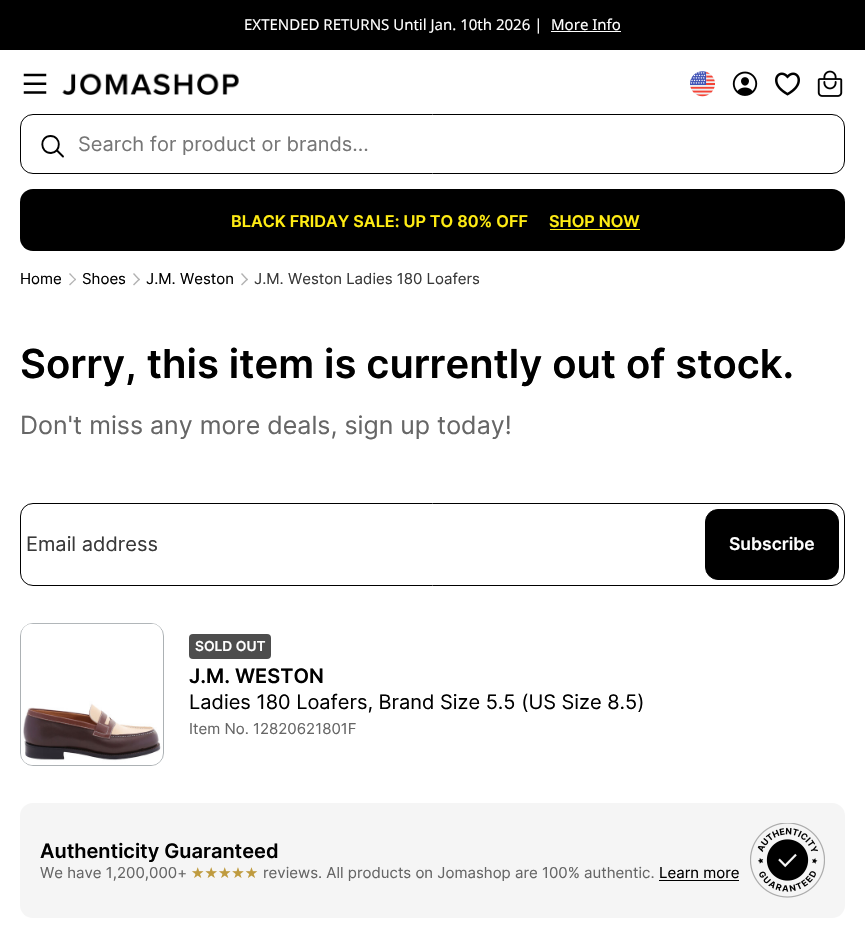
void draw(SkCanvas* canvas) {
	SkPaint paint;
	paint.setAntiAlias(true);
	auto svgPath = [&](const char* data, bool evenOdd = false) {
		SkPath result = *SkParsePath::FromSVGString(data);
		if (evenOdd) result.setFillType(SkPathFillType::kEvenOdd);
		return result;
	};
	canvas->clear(0xffffffff);
	paint.setColor(0xff000000);
	canvas->drawRect(SkRect::MakeXYWH(0, 0, 865, 50), paint);
	SkFont f1(fontMgr->matchFamilyStyle("Noto Sans", SkFontStyle::Normal()), 15);
	f1.setSubpixel(true);
	paint.setColor(0xffffffff);
	canvas->drawString("EXTENDED RETURNS Until Jan. 10th 2026 |", 244, 30, f1, paint);
	canvas->drawString("More Info", 551, 30, f1, paint);
	canvas->drawRect(SkRect::MakeXYWH(551, 31, 70, 1), paint);
	canvas->drawImageRect(SkImages::DeferredFromEncodedData(SkData::MakeFromFileName("img1.png")), SkRect::MakeXYWH(23, 73, 24, 21), SkSamplingOptions());
	canvas->drawImageRect(SkImages::DeferredFromEncodedData(SkData::MakeFromFileName("img2.png")), SkRect::MakeXYWH(62, 73, 177, 22), SkSamplingOptions());
	canvas->drawImageRect(SkImages::DeferredFromEncodedData(SkData::MakeFromFileName("img3.png")), SkRect::MakeXYWH(690, 71, 25, 26), SkSamplingOptions());
	canvas->drawImageRect(SkImages::DeferredFromEncodedData(SkData::MakeFromFileName("img4.png")), SkRect::MakeXYWH(732, 71, 26, 25), SkSamplingOptions());
	canvas->drawImageRect(SkImages::DeferredFromEncodedData(SkData::MakeFromFileName("img5.png")), SkRect::MakeXYWH(775, 72, 25, 24), SkSamplingOptions());
	canvas->drawImageRect(SkImages::DeferredFromEncodedData(SkData::MakeFromFileName("img6.png")), SkRect::MakeXYWH(817, 70, 26, 27), SkSamplingOptions());
	paint.setStroke(true);
	paint.setStrokeWidth(1);
	paint.setColor(0xff000000);
	canvas->drawRoundRect(SkRect::MakeXYWH(20.5, 114.5, 824, 59), 12.5, 12.5, paint);
	paint.setStrokeWidth(1.9);
	canvas->drawPath(svgPath("M50.5 136C39.5 136 39.5 153 51 153C61.5 152.5 61.5 136 50.5 136Z"), paint);
	paint.setStrokeCap(SkPaint::kRound_Cap);
	canvas->drawPath(svgPath("M57 150.5L63 156.5"), paint);
	SkFont f2(fontMgr->matchFamilyStyle("Inter", SkFontStyle::Normal()), 20);
	f2.setSubpixel(true);
	paint.setStroke(false);
	paint.setColor(0xff767676);
	canvas->drawString("Search for product or brands...", 78, 151, f2, paint);
	paint.setColor(0xff000000);
	canvas->drawRoundRect(SkRect::MakeXYWH(20, 189, 825, 62), 13, 13, paint);
	SkFont f3(fontMgr->matchFamilyStyle("Inter", SkFontStyle(600, SkFontStyle::kNormal_Width, SkFontStyle::kUpright_Slant)), 16.25);
	f3.setSubpixel(true);
	paint.setColor(0xffffec13);
	canvas->drawString("BLACK FRIDAY SALE: UP TO 80% OFF", 231, 227, f3, paint);
	canvas->drawString("SHOP NOW", 549, 227, f3, paint);
	canvas->drawRect(SkRect::MakeXYWH(550, 229, 90, 1), paint);
	SkFont f4(fontMgr->matchFamilyStyle("Inter", SkFontStyle::Normal()), 15);
	f4.setSubpixel(true);
	paint.setColor(0xff000000);
	canvas->drawString("Home", 20, 284, f4, paint);
	paint.setColor(0xffb2b2b2);
	canvas->drawPath(svgPath("M76 279.5L70 285.5L69 284.5L75.5 278.5Z"), paint);
	canvas->drawPath(svgPath("M76 279.5L75.5 280.5L69 274L70 273Z"), paint);
	paint.setColor(0xff000000);
	canvas->drawString("Shoes", 82, 284, f4, paint);
	paint.setColor(0xffb2b2b2);
	canvas->drawPath(svgPath("M140 279.5L134 285.5L133 284.5L139 278.5Z"), paint);
	canvas->drawPath(svgPath("M140 279.5L139 280.5L133 274L134 273Z"), paint);
	paint.setColor(0xff000000);
	canvas->drawString("J.M. Weston", 146, 284, f4, paint);
	paint.setColor(0xffb2b2b2);
	canvas->drawPath(svgPath("M248 279.5L242 285.5L241 284.5L247 278.5Z"), paint);
	canvas->drawPath(svgPath("M248 279.5L247 280.5L241 274L242 273Z"), paint);
	paint.setColor(0xff393939);
	canvas->drawString("J.M. Weston Ladies 180 Loafers", 254, 284, f4, paint);
	SkFont f5(fontMgr->matchFamilyStyle("Inter", SkFontStyle(600, SkFontStyle::kNormal_Width, SkFontStyle::kUpright_Slant)), 40);
	f5.setSubpixel(true);
	paint.setColor(0xff000000);
	canvas->drawString("Sorry, this item is currently out of stock.", 20, 378, f5, paint);
	SkFont f6(fontMgr->matchFamilyStyle("Inter", SkFontStyle::Normal()), 25);
	f6.setSubpixel(true);
	paint.setColor(0xff666666);
	canvas->drawString("Don't miss any more deals, sign up today!", 20, 434, f6, paint);
	paint.setStroke(true);
	paint.setStrokeWidth(1);
	paint.setStrokeCap(SkPaint::kButt_Cap);
	paint.setColor(0xff000000);
	canvas->drawRoundRect(SkRect::MakeXYWH(20.5, 503.5, 824, 82), 12.5, 12.5, paint);
	paint.setStroke(false);
	paint.setColor(0xff393939);
	canvas->drawString("Email address", 26, 551, f2, paint);
	paint.setColor(0xff000000);
	canvas->drawRoundRect(SkRect::MakeXYWH(705.5, 509.5, 133, 70), 12.5, 12.5, paint);
	paint.setStroke(true);
	canvas->drawRoundRect(SkRect::MakeXYWH(705.5, 509.5, 133, 70), 12.5, 12.5, paint);
	SkFont f7(fontMgr->matchFamilyStyle("Inter", SkFontStyle(600, SkFontStyle::kNormal_Width, SkFontStyle::kUpright_Slant)), 17.5);
	f7.setSubpixel(true);
	paint.setStroke(false);
	paint.setColor(0xffffffff);
	canvas->drawString("Subscribe", 729, 550, f7, paint);
	paint.setStroke(true);
	paint.setColor(0xffacb1b4);
	canvas->drawRoundRect(SkRect::MakeXYWH(20.5, 623.5, 143, 142), 12.5, 12.5, paint);
	canvas->drawImageRect(SkImages::DeferredFromEncodedData(SkData::MakeFromFileName("img7.png")), SkRect::MakeXYWH(21, 623, 142, 142), SkSamplingOptions());
	paint.setStroke(false);
	paint.setColor(0xff4d4d4d);
	canvas->drawRoundRect(SkRect::MakeXYWH(189, 634, 82, 25), 4, 4, paint);
	SkFont f8(fontMgr->matchFamilyStyle("Inter", SkFontStyle(600, SkFontStyle::kNormal_Width, SkFontStyle::kUpright_Slant)), 13.75);
	f8.setSubpixel(true);
	paint.setColor(0xffffffff);
	canvas->drawString("SOLD OUT", 195, 651, f8, paint);
	SkFont f9(fontMgr->matchFamilyStyle("Inter", SkFontStyle(600, SkFontStyle::kNormal_Width, SkFontStyle::kUpright_Slant)), 20);
	f9.setSubpixel(true);
	paint.setColor(0xff000000);
	canvas->drawString("J.M. WESTON", 189, 683, f9, paint);
	canvas->drawString("Ladies 180 Loafers, Brand Size 5.5 (US Size 8.5)", 189, 709, f2, paint);
	paint.setColor(0xff666666);
	canvas->drawString("Item No. 12820621801F", 189, 734, f4, paint);
	paint.setColor(0xfff5f5f5);
	canvas->drawRoundRect(SkRect::MakeXYWH(20, 803, 825, 115), 13, 13, paint);
	paint.setColor(0xff000000);
	canvas->drawString("Authenticity Guaranteed", 40, 858, f9, paint);
	paint.setColor(0xff666666);
	canvas->drawString("We have 1,200,000+", 40, 878, f4, paint);
	SkFont f10(fontMgr->matchFamilyStyle("DejaVu Sans", SkFontStyle::Normal()), 15);
	f10.setSubpixel(true);
	paint.setColor(0xffbf9b3f);
	canvas->drawString("★★★★★", 191, 878, f10, paint);
	paint.setColor(0xff666666);
	canvas->drawString("reviews. All products on Jomashop are 100% authentic.", 263, 878, f4, paint);
	paint.setColor(0xff000000);
	canvas->drawString("Learn more", 659, 878, f4, paint);
	canvas->drawRect(SkRect::MakeXYWH(659, 880, 80, 1), paint);
	canvas->drawImageRect(SkImages::DeferredFromEncodedData(SkData::MakeFromFileName("img8.png")), SkRect::MakeXYWH(750, 823, 75, 75), SkSamplingOptions());
}
